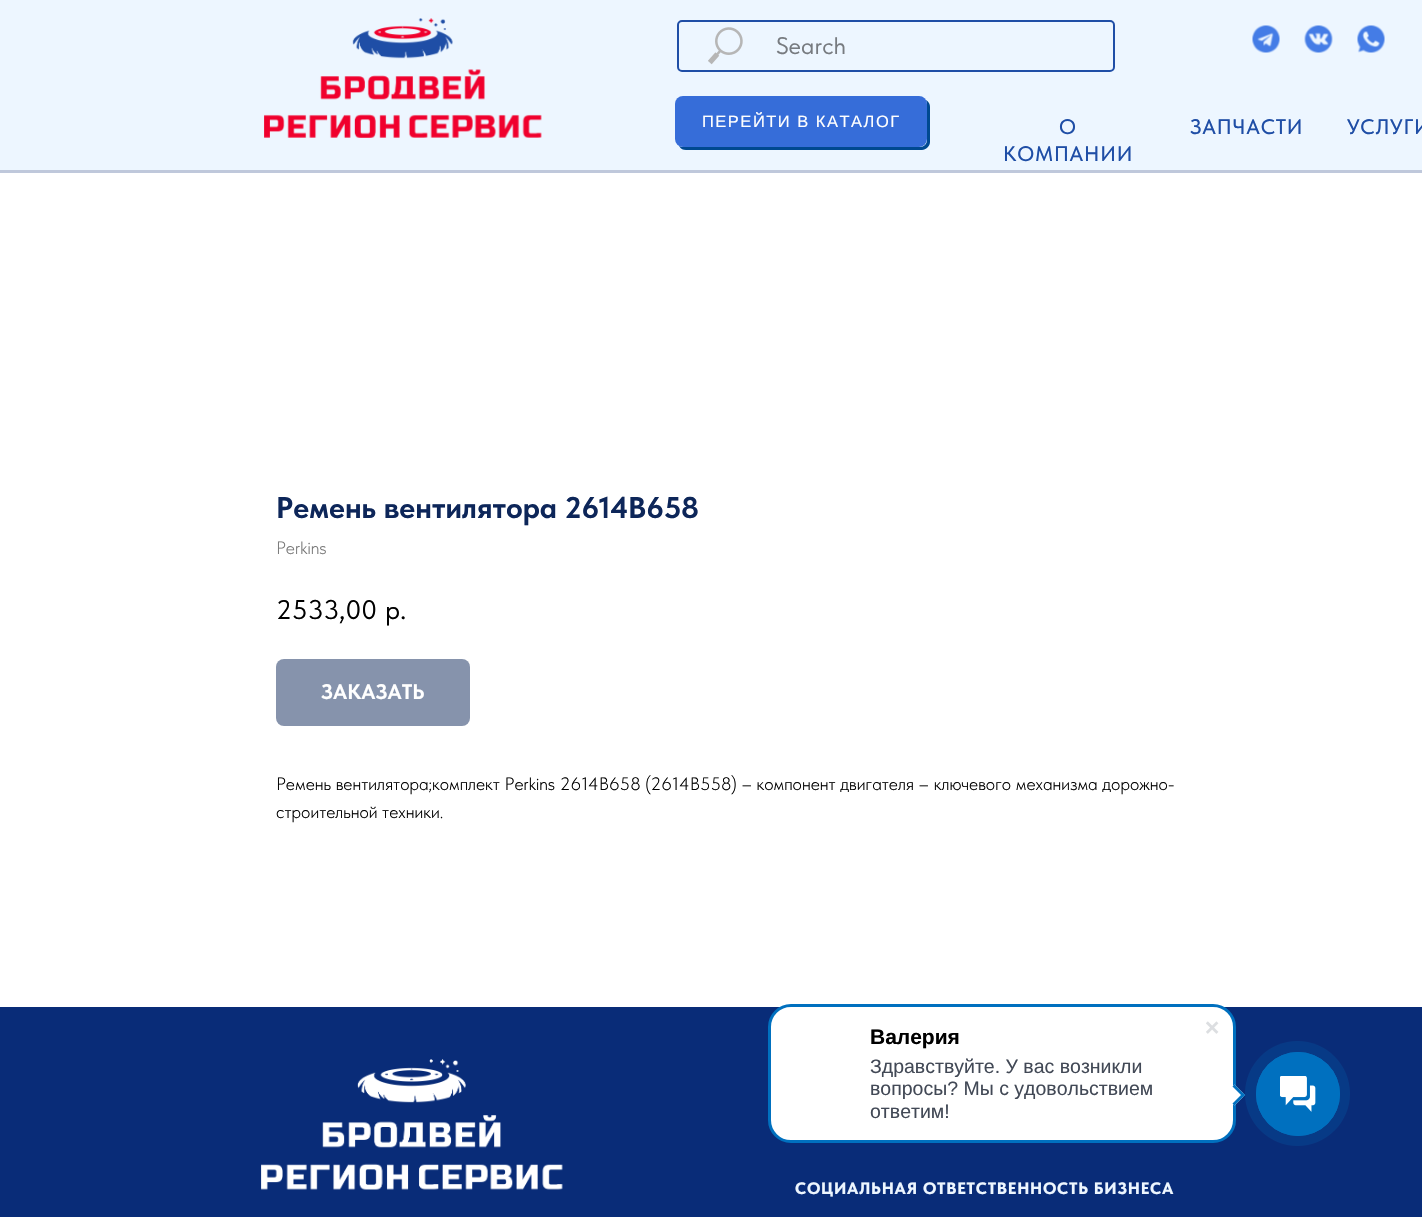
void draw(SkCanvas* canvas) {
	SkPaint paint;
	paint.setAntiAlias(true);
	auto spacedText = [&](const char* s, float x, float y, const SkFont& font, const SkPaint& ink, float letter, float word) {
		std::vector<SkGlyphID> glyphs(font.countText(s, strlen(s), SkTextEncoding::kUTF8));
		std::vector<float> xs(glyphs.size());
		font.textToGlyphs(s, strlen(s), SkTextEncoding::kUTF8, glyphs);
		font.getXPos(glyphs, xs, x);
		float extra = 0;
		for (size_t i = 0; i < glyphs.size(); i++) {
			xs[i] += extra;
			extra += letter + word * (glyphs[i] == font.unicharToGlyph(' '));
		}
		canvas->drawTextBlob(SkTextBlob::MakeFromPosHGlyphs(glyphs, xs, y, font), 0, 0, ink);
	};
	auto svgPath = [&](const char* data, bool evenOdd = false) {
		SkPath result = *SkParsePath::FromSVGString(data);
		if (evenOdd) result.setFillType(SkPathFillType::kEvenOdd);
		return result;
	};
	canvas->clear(0xffffffff);
	paint.setColor(0xffedf6ff);
	canvas->drawRect(SkRect::MakeXYWH(0, 0, 1422, 170), paint);
	canvas->drawImageRect(SkImages::DeferredFromEncodedData(SkData::MakeFromFileName("img1.png")), SkRect::MakeXYWH(264, 18, 278, 120), SkSamplingOptions());
	paint.setStroke(true);
	paint.setStrokeWidth(2);
	paint.setColor(0xff1f4ea6);
	canvas->drawRoundRect(SkRect::MakeXYWH(678, 21, 436, 50), 4, 4, paint);
	canvas->drawImageRect(SkImages::DeferredFromEncodedData(SkData::MakeFromFileName("img2.png")), SkRect::MakeXYWH(708, 27, 35, 38), SkSamplingOptions());
	SkFont f1(fontMgr->matchFamilyStyle("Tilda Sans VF", SkFontStyle::Normal()), 24);
	f1.setSubpixel(true);
	paint.setStroke(false);
	paint.setColor(0xff777b80);
	canvas->drawString("Search", 776, 54, f1, paint);
	canvas->drawImageRect(SkImages::DeferredFromEncodedData(SkData::MakeFromFileName("img3.png")), SkRect::MakeXYWH(1252, 25, 28, 28), SkSamplingOptions());
	canvas->drawImageRect(SkImages::DeferredFromEncodedData(SkData::MakeFromFileName("img4.png")), SkRect::MakeXYWH(1304, 25, 29, 28), SkSamplingOptions());
	canvas->drawImageRect(SkImages::DeferredFromEncodedData(SkData::MakeFromFileName("img5.png")), SkRect::MakeXYWH(1357, 25, 28, 28), SkSamplingOptions());
	paint.setColor(0xff004991);
	canvas->drawPath(svgPath("M679 146C681 149 683 150 686 150H922C926 150 930 146 930 142V107C930 104 929 102 926 100L927 104V140C927 144 924 147 920 147H682Z"), paint);
	paint.setColor(0xff366dd9);
	canvas->drawRoundRect(SkRect::MakeXYWH(675, 96, 252, 51), 8, 8, paint);
	SkFont f2(fontMgr->matchFamilyStyle("Liberation Sans", SkFontStyle::Normal()), 16.5);
	f2.setSubpixel(true);
	paint.setColor(0xffffffff);
	spacedText("ПЕРЕЙТИ В КАТАЛОГ", 702, 127, f2, paint, 1.5, 0);
	SkFont f3(fontMgr->matchFamilyStyle("Tilda Sans VF", SkFontStyle(500, SkFontStyle::kNormal_Width, SkFontStyle::kUpright_Slant)), 21);
	f3.setSubpixel(true);
	paint.setColor(0xff1f4ea6);
	spacedText("О", 1059, 134, f3, paint, 0.75, 0);
	spacedText("КОМПАНИИ", 1003, 161, f3, paint, 0.75, 0);
	spacedText("ЗАПЧАСТИ", 1190, 134, f3, paint, 0.75, 0);
	spacedText("УСЛУГИ", 1347, 134, f3, paint, 0.75, 0);
	paint.setColor(0xffbfc8db);
	canvas->drawRect(SkRect::MakeXYWH(0, 170, 1422, 3), paint);
	SkFont f4(fontMgr->matchFamilyStyle("Tilda Sans VF", SkFontStyle::Bold()), 30);
	f4.setSubpixel(true);
	paint.setColor(0xff0d2659);
	canvas->drawString("Ремень вентилятора 2614В658", 276, 518, f4, paint);
	SkFont f5(fontMgr->matchFamilyStyle("Tilda Sans VF", SkFontStyle(300, SkFontStyle::kNormal_Width, SkFontStyle::kUpright_Slant)), 18);
	f5.setSubpixel(true);
	paint.setColor(0xff777777);
	canvas->drawString("Perkins", 276, 554, f5, paint);
	SkFont f6(fontMgr->matchFamilyStyle("Tilda Sans VF", SkFontStyle::Normal()), 27);
	f6.setSubpixel(true);
	paint.setColor(0xff000000);
	canvas->drawString("2533,00", 276, 619, f6, paint);
	canvas->drawString("р.", 385, 619, f6, paint);
	paint.setColor(0xff8693ac);
	canvas->drawRoundRect(SkRect::MakeXYWH(276, 659, 194, 67), 8, 8, paint);
	SkFont f7(fontMgr->matchFamilyStyle("Tilda Sans VF", SkFontStyle::Bold()), 21);
	f7.setSubpixel(true);
	paint.setColor(0xffffffff);
	canvas->drawString("ЗАКАЗАТЬ", 321, 699, f7, paint);
	paint.setColor(0xff000000);
	canvas->drawString("Ремень вентилятора;комплект Perkins 2614B658 (2614B558) – компонент двигателя – ключевого механизма дорожно-", 276, 790, f5, paint);
	canvas->drawString("строительной техники.", 276, 818, f5, paint);
	paint.setColor(0xff092c78);
	canvas->drawRect(SkRect::MakeXYWH(0, 1007, 1422, 210), paint);
	canvas->drawImageRect(SkImages::DeferredFromEncodedData(SkData::MakeFromFileName("img6.png")), SkRect::MakeXYWH(261, 1059, 302, 131), SkSamplingOptions());
	SkFont f8(fontMgr->matchFamilyStyle("Tilda Sans VF", SkFontStyle(800, SkFontStyle::kNormal_Width, SkFontStyle::kUpright_Slant)), 16.5);
	f8.setSubpixel(true);
	paint.setColor(0xffedf6ff);
	spacedText("СОЦИАЛЬНАЯ ОТВЕТСТВЕННОСТЬ БИЗНЕСА", 795, 1194, f8, paint, 0.75, 0);
	paint.setColor(0xffffffff);
	canvas->drawRoundRect(SkRect::MakeXYWH(769.5, 1005.5, 465, 136), 21.5, 21.5, paint);
	paint.setStroke(true);
	paint.setStrokeWidth(3);
	paint.setColor(0xff0070bf);
	canvas->drawRoundRect(SkRect::MakeXYWH(769.5, 1005.5, 465, 136), 21.5, 21.5, paint);
	canvas->drawImageRect(SkImages::DeferredFromEncodedData(SkData::MakeFromFileName("img7.png")), SkRect::MakeXYWH(1206, 1021, 13, 13), SkSamplingOptions());
	SkFont f9(fontMgr->matchFamilyStyle("Liberation Sans", SkFontStyle::Bold()), 21);
	f9.setSubpixel(true);
	paint.setStroke(false);
	paint.setColor(0xff000000);
	canvas->drawString("Валерия", 870, 1044, f9, paint);
	SkFont f10(fontMgr->matchFamilyStyle("Liberation Sans", SkFontStyle::Normal()), 19.5);
	f10.setSubpixel(true);
	paint.setColor(0xff424956);
	canvas->drawString("Здравствуйте. У вас возникли", 870, 1073, f10, paint);
	canvas->drawString("вопросы? Мы с удовольствием", 870, 1095, f10, paint);
	canvas->drawString("ответим!", 870, 1118, f10, paint);
	paint.setColor(0xffffffff);
	canvas->drawPath(svgPath("M1224 1095L1234.5 1084.5L1245 1095L1234.5 1105.5Z"), paint);
	paint.setColor(0xff0070bf);
	canvas->drawPath(svgPath("M1232.5 1086.5L1234.5 1084.5L1245 1095L1243 1097Z"), paint);
	canvas->drawPath(svgPath("M1232.5 1103.5L1243 1093L1245 1095L1234.5 1105.5Z"), paint);
	paint.setColor(0xff073a86);
	canvas->drawCircle(1297.5, 1093.5, 52.5, paint);
	paint.setStroke(true);
	paint.setStrokeWidth(1);
	paint.setColor(0xff0070bf);
	canvas->drawCircle(1298, 1094, 41.5, paint);
	paint.setStroke(false);
	canvas->drawCircle(1298, 1094, 42, paint);
	canvas->drawImageRect(SkImages::DeferredFromEncodedData(SkData::MakeFromFileName("img8.png")), SkRect::MakeXYWH(1280, 1076, 36, 36), SkSamplingOptions());
}
